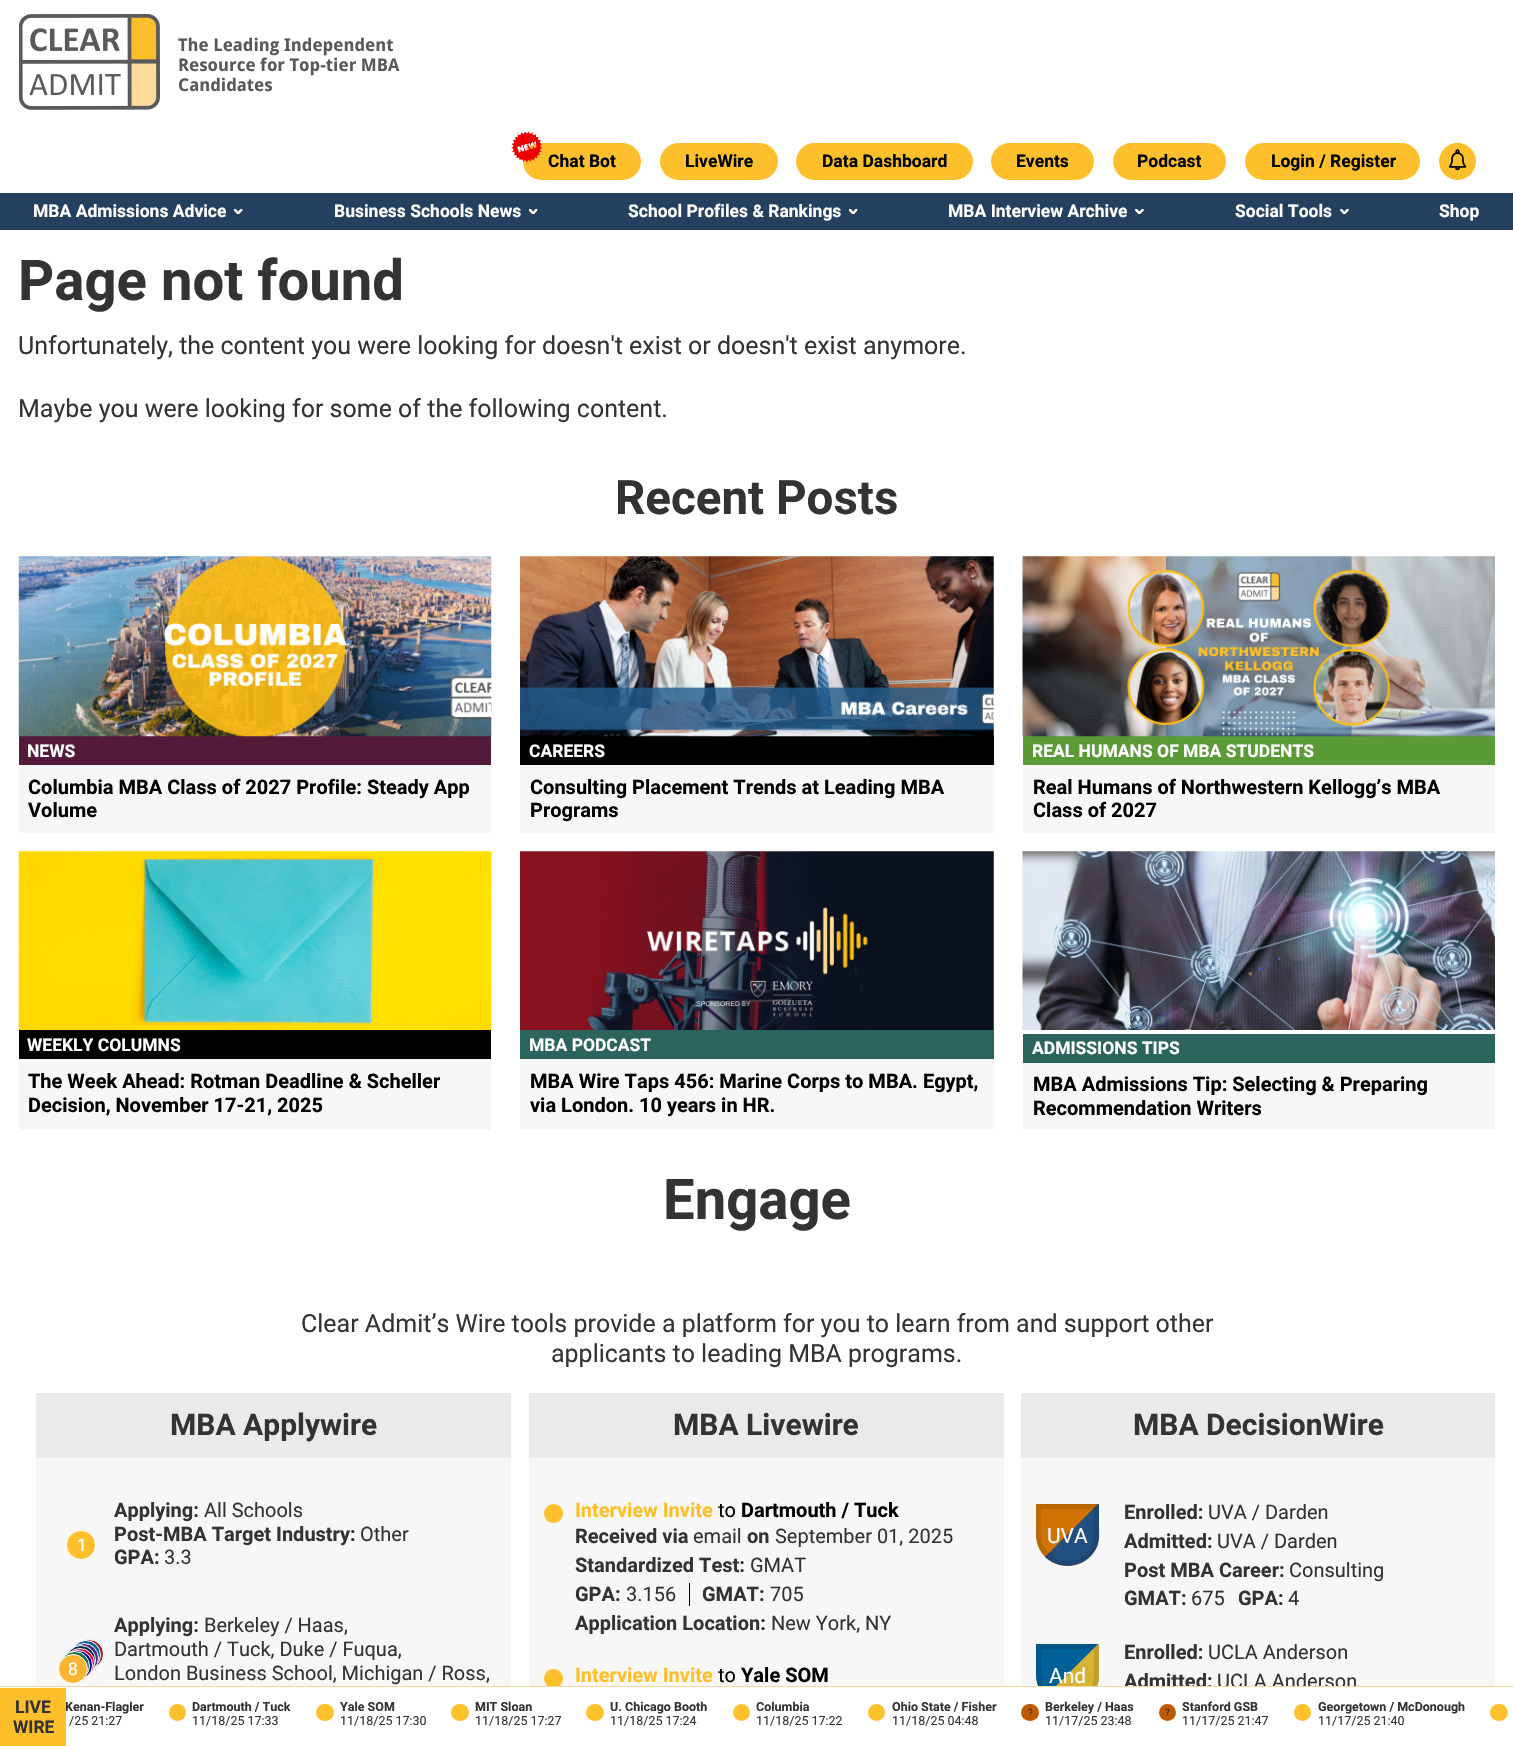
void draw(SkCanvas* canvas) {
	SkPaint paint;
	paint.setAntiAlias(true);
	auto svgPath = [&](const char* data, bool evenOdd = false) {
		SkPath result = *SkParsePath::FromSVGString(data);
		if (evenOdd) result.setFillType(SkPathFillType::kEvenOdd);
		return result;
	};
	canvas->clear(0xffffffff);
	canvas->drawImageRect(SkImages::DeferredFromEncodedData(SkData::MakeFromFileName("img1.png")), SkRect::MakeXYWH(19, 14, 141, 96), SkSamplingOptions());
	SkFont f1(fontMgr->matchFamilyStyle("Droid Sans", SkFontStyle::Bold()), 17.5);
	f1.setSubpixel(true);
	paint.setColor(0xff59595c);
	canvas->drawString("The Leading Independent", 178, 51, f1, paint);
	canvas->drawString("Resource for Top-tier MBA", 178, 71, f1, paint);
	canvas->drawString("Candidates", 178, 91, f1, paint);
	paint.setColor(0xfffdc02c);
	canvas->drawRoundRect(SkRect::MakeXYWH(523, 143, 118, 37), 18.5, 18.5, paint);
	canvas->drawImageRect(SkImages::DeferredFromEncodedData(SkData::MakeFromFileName("img2.png")), SkRect::MakeXYWH(511, 131, 32, 32), SkSamplingOptions());
	SkFont f2(fontMgr->matchFamilyStyle("Roboto", SkFontStyle::Bold()), 17.5);
	f2.setSubpixel(true);
	paint.setColor(0xff000000);
	canvas->drawString("Chat Bot", 548, 167, f2, paint);
	paint.setColor(0xfffdc02c);
	canvas->drawRoundRect(SkRect::MakeXYWH(660, 143, 118, 37), 18.5, 18.5, paint);
	paint.setColor(0xff000000);
	canvas->drawString("LiveWire", 685, 167, f2, paint);
	paint.setColor(0xfffdc02c);
	canvas->drawRoundRect(SkRect::MakeXYWH(796, 143, 177, 37), 18.5, 18.5, paint);
	paint.setColor(0xff000000);
	canvas->drawString("Data Dashboard", 822, 167, f2, paint);
	paint.setColor(0xfffdc02c);
	canvas->drawRoundRect(SkRect::MakeXYWH(991, 143, 103, 37), 18.5, 18.5, paint);
	paint.setColor(0xff000000);
	canvas->drawString("Events", 1016, 167, f2, paint);
	paint.setColor(0xfffdc02c);
	canvas->drawRoundRect(SkRect::MakeXYWH(1113, 143, 113, 37), 18.5, 18.5, paint);
	paint.setColor(0xff000000);
	canvas->drawString("Podcast", 1137, 167, f2, paint);
	paint.setColor(0xfffdc02c);
	canvas->drawRoundRect(SkRect::MakeXYWH(1245, 143, 175, 37), 18.5, 18.5, paint);
	paint.setColor(0xff000000);
	canvas->drawString("Login / Register", 1271, 167, f2, paint);
	paint.setColor(0xfffdc02c);
	canvas->drawCircle(1457.5, 161.5, 18.5, paint);
	canvas->drawImageRect(SkImages::DeferredFromEncodedData(SkData::MakeFromFileName("img3.png")), SkRect::MakeXYWH(1441, 143, 33, 28), SkSamplingOptions());
	paint.setColor(0xff23405f);
	canvas->drawRect(SkRect::MakeXYWH(0, 193, 1513, 37), paint);
	paint.setColor(0xffffffff);
	canvas->drawString("MBA Admissions Advice", 33, 217, f2, paint);
	canvas->drawImageRect(SkImages::DeferredFromEncodedData(SkData::MakeFromFileName("img4.png")), SkRect::MakeXYWH(234, 209, 9, 5), SkSamplingOptions());
	canvas->drawString("Business Schools News", 334, 217, f2, paint);
	canvas->drawImageRect(SkImages::DeferredFromEncodedData(SkData::MakeFromFileName("img4.png")), SkRect::MakeXYWH(529, 209, 9, 5), SkSamplingOptions());
	canvas->drawString("School Profiles & Rankings", 628, 217, f2, paint);
	canvas->drawImageRect(SkImages::DeferredFromEncodedData(SkData::MakeFromFileName("img4.png")), SkRect::MakeXYWH(849, 209, 9, 5), SkSamplingOptions());
	canvas->drawString("MBA Interview Archive", 948, 217, f2, paint);
	canvas->drawImageRect(SkImages::DeferredFromEncodedData(SkData::MakeFromFileName("img5.png")), SkRect::MakeXYWH(1135, 209, 9, 5), SkSamplingOptions());
	canvas->drawString("Social Tools", 1235, 217, f2, paint);
	canvas->drawImageRect(SkImages::DeferredFromEncodedData(SkData::MakeFromFileName("img5.png")), SkRect::MakeXYWH(1340, 209, 9, 5), SkSamplingOptions());
	canvas->drawString("Shop", 1439, 217, f2, paint);
	SkFont f3(fontMgr->matchFamilyStyle("Roboto", SkFontStyle::Bold()), 56.25);
	f3.setSubpixel(true);
	paint.setColor(0xff333333);
	canvas->drawString("Page not found", 18, 300, f3, paint);
	SkFont f4(fontMgr->matchFamilyStyle("Roboto", SkFontStyle::Normal()), 25);
	f4.setSubpixel(true);
	canvas->drawString("Unfortunately, the content you were looking for doesn't exist or doesn't exist anymore.", 18, 354, f4, paint);
	canvas->drawString("Maybe you were looking for some of the following content.", 18, 417, f4, paint);
	SkFont f5(fontMgr->matchFamilyStyle("Roboto", SkFontStyle::Bold()), 47.5);
	f5.setSubpixel(true);
	canvas->drawString("Recent Posts", 615, 514, f5, paint);
	paint.setColor(0xff531a39);
	canvas->drawRect(SkRect::MakeXYWH(19, 736, 472, 29), paint);
	canvas->drawImageRect(SkImages::DeferredFromEncodedData(SkData::MakeFromFileName("img6.png")), SkRect::MakeXYWH(18, 556, 474, 181), SkSamplingOptions());
	paint.setColor(0xffffffff);
	canvas->drawString("NEWS", 27, 757, f2, paint);
	paint.setColor(0xfff7f7f7);
	canvas->drawRect(SkRect::MakeXYWH(19, 765, 472, 68), paint);
	SkFont f6(fontMgr->matchFamilyStyle("Roboto", SkFontStyle::Bold()), 20);
	f6.setSubpixel(true);
	paint.setColor(0xff000000);
	canvas->drawString("Columbia MBA Class of 2027 Profile: Steady App", 28, 794, f6, paint);
	canvas->drawString("Volume", 28, 817, f6, paint);
	canvas->drawRect(SkRect::MakeXYWH(520, 736, 474, 29), paint);
	canvas->drawImageRect(SkImages::DeferredFromEncodedData(SkData::MakeFromFileName("img7.png")), SkRect::MakeXYWH(520, 556, 474, 181), SkSamplingOptions());
	paint.setColor(0xffffffff);
	canvas->drawString("CAREERS", 529, 757, f2, paint);
	paint.setColor(0xfff7f7f7);
	canvas->drawRect(SkRect::MakeXYWH(520, 765, 474, 68), paint);
	paint.setColor(0xff000000);
	canvas->drawString("Consulting Placement Trends at Leading MBA", 530, 794, f6, paint);
	canvas->drawString("Programs", 530, 817, f6, paint);
	paint.setColor(0xff5a9b37);
	canvas->drawRect(SkRect::MakeXYWH(1023, 736, 472, 29), paint);
	canvas->drawImageRect(SkImages::DeferredFromEncodedData(SkData::MakeFromFileName("img8.png")), SkRect::MakeXYWH(1022, 556, 473, 181), SkSamplingOptions());
	paint.setColor(0xffffffff);
	canvas->drawString("REAL HUMANS OF MBA STUDENTS", 1032, 757, f2, paint);
	paint.setColor(0xfff7f7f7);
	canvas->drawRect(SkRect::MakeXYWH(1023, 765, 472, 68), paint);
	paint.setColor(0xff000000);
	canvas->drawString("Real Humans of Northwestern Kellogg’s MBA", 1033, 794, f6, paint);
	canvas->drawString("Class of 2027", 1033, 817, f6, paint);
	canvas->drawImageRect(SkImages::DeferredFromEncodedData(SkData::MakeFromFileName("img9.png")), SkRect::MakeXYWH(18, 851, 474, 179), SkSamplingOptions());
	canvas->drawRect(SkRect::MakeXYWH(19, 1030, 472, 29), paint);
	paint.setColor(0xffffffff);
	canvas->drawString("WEEKLY COLUMNS", 27, 1051, f2, paint);
	paint.setColor(0xfff7f7f7);
	canvas->drawRect(SkRect::MakeXYWH(19, 1059, 472, 71), paint);
	paint.setColor(0xff000000);
	canvas->drawString("The Week Ahead: Rotman Deadline & Scheller", 28, 1088, f6, paint);
	canvas->drawString("Decision, November 17-21, 2025", 28, 1112, f6, paint);
	canvas->drawImageRect(SkImages::DeferredFromEncodedData(SkData::MakeFromFileName("img10.png")), SkRect::MakeXYWH(520, 851, 474, 179), SkSamplingOptions());
	paint.setColor(0xff2b645d);
	canvas->drawRect(SkRect::MakeXYWH(520, 1030, 474, 29), paint);
	paint.setColor(0xffffffff);
	canvas->drawString("MBA PODCAST", 529, 1051, f2, paint);
	paint.setColor(0xfff7f7f7);
	canvas->drawRect(SkRect::MakeXYWH(520, 1059, 474, 71), paint);
	paint.setColor(0xff000000);
	canvas->drawString("MBA Wire Taps 456: Marine Corps to MBA. Egypt,", 530, 1088, f6, paint);
	canvas->drawString("via London. 10 years in HR.", 530, 1112, f6, paint);
	canvas->drawImageRect(SkImages::DeferredFromEncodedData(SkData::MakeFromFileName("img11.png")), SkRect::MakeXYWH(1022, 851, 473, 179), SkSamplingOptions());
	paint.setColor(0xff2b645d);
	canvas->drawRect(SkRect::MakeXYWH(1023, 1034, 472, 29), paint);
	paint.setColor(0xffffffff);
	canvas->drawString("ADMISSIONS TIPS", 1032, 1054, f2, paint);
	paint.setColor(0xfff7f7f7);
	canvas->drawRect(SkRect::MakeXYWH(1023, 1063, 472, 67), paint);
	paint.setColor(0xff000000);
	canvas->drawString("MBA Admissions Tip: Selecting & Preparing", 1033, 1091, f6, paint);
	canvas->drawString("Recommendation Writers", 1033, 1115, f6, paint);
	paint.setColor(0xff333333);
	canvas->drawString("Engage", 663, 1219, f3, paint);
	canvas->drawString("Clear Admit’s Wire tools provide a platform for you to learn from and support other", 301, 1332, f4, paint);
	canvas->drawString("applicants to leading MBA programs.", 551, 1362, f4, paint);
	paint.setColor(0xfff7f7f7);
	canvas->drawRect(SkRect::MakeXYWH(36, 1458, 475, 228), paint);
	paint.setColor(0xffeaeaea);
	canvas->drawRect(SkRect::MakeXYWH(36, 1393, 475, 65), paint);
	SkFont f7(fontMgr->matchFamilyStyle("Roboto", SkFontStyle::Bold()), 30);
	f7.setSubpixel(true);
	paint.setColor(0xff333333);
	canvas->drawString("MBA Applywire", 170, 1435, f7, paint);
	paint.setColor(0xfffdc02c);
	canvas->drawCircle(81, 1545, 14.5, paint);
	paint.setStroke(true);
	paint.setStrokeWidth(1);
	paint.setColor(0xffffffff);
	canvas->drawCircle(81, 1545, 14.5, paint);
	SkFont f8(fontMgr->matchFamilyStyle("Roboto", SkFontStyle::Normal()), 17.5);
	f8.setSubpixel(true);
	paint.setStroke(false);
	canvas->drawString("1", 77, 1551, f8, paint);
	paint.setColor(0xff333333);
	canvas->drawString("Applying:", 114, 1517, f6, paint);
	SkFont f9(fontMgr->matchFamilyStyle("Roboto", SkFontStyle::Normal()), 20);
	f9.setSubpixel(true);
	canvas->drawString("All Schools", 204, 1517, f9, paint);
	canvas->drawString("Post-MBA Target Industry:", 114, 1541, f6, paint);
	canvas->drawString("Other", 360, 1541, f9, paint);
	canvas->drawString("GPA:", 114, 1564, f6, paint);
	canvas->drawString("3.3", 164, 1564, f9, paint);
	paint.setColor(0xff991d20);
	canvas->drawCircle(89, 1654, 14.5, paint);
	paint.setStroke(true);
	paint.setColor(0xffffffff);
	canvas->drawCircle(89, 1654, 14.5, paint);
	paint.setStroke(false);
	paint.setColor(0xff006098);
	canvas->drawCircle(86, 1655, 14.5, paint);
	paint.setStroke(true);
	paint.setColor(0xffffffff);
	canvas->drawCircle(86, 1655, 14.5, paint);
	paint.setStroke(false);
	paint.setColor(0xff482a80);
	canvas->drawCircle(84, 1658, 14.5, paint);
	paint.setStroke(true);
	paint.setColor(0xffffffff);
	canvas->drawCircle(84, 1658, 14.5, paint);
	paint.setStroke(false);
	paint.setColor(0xff002841);
	canvas->drawCircle(81, 1660, 14.5, paint);
	paint.setStroke(true);
	paint.setColor(0xffffffff);
	canvas->drawCircle(81, 1660, 14.5, paint);
	paint.setStroke(false);
	paint.setColor(0xffcc0033);
	canvas->drawCircle(80, 1663, 14.5, paint);
	paint.setStroke(true);
	paint.setColor(0xffffffff);
	canvas->drawCircle(80, 1663, 14.5, paint);
	paint.setStroke(false);
	paint.setColor(0xff000098);
	canvas->drawCircle(78, 1665, 14.5, paint);
	paint.setStroke(true);
	paint.setColor(0xffffffff);
	canvas->drawCircle(78, 1665, 14.5, paint);
	paint.setStroke(false);
	paint.setColor(0xff10754f);
	canvas->drawCircle(75, 1666, 14.5, paint);
	paint.setStroke(true);
	paint.setColor(0xffffffff);
	canvas->drawCircle(75, 1666, 14.5, paint);
	paint.setStroke(false);
	paint.setColor(0xfffbb431);
	canvas->drawCircle(73, 1669, 14.5, paint);
	paint.setStroke(true);
	paint.setColor(0xffffffff);
	canvas->drawCircle(73, 1669, 14.5, paint);
	paint.setStroke(false);
	canvas->drawString("8", 68, 1675, f8, paint);
	paint.setColor(0xff333333);
	canvas->drawString("Applying:", 114, 1632, f6, paint);
	canvas->drawString("Berkeley / Haas,", 204, 1632, f9, paint);
	canvas->drawString("Dartmouth / Tuck, Duke / Fuqua,", 114, 1656, f9, paint);
	canvas->drawString("London Business School, Michigan / Ross,", 114, 1680, f9, paint);
	paint.setColor(0xfff7f7f7);
	canvas->drawRect(SkRect::MakeXYWH(529, 1458, 475, 228), paint);
	paint.setColor(0xffeaeaea);
	canvas->drawRect(SkRect::MakeXYWH(529, 1393, 475, 65), paint);
	paint.setColor(0xff333333);
	canvas->drawString("MBA Livewire", 673, 1435, f7, paint);
	paint.setColor(0xfffdc02c);
	canvas->drawCircle(553.5, 1513.5, 9.5, paint);
	canvas->drawString("Interview Invite", 575, 1517, f6, paint);
	paint.setColor(0xff000000);
	canvas->drawString("to", 718, 1517, f9, paint);
	canvas->drawString("Dartmouth / Tuck", 741, 1517, f6, paint);
	paint.setColor(0xff333333);
	canvas->drawString("Received via", 575, 1543, f6, paint);
	canvas->drawString("email", 693, 1543, f9, paint);
	canvas->drawString("on", 747, 1543, f6, paint);
	canvas->drawString("September 01, 2025", 775, 1543, f9, paint);
	canvas->drawString("Standardized Test:", 575, 1572, f6, paint);
	canvas->drawString("GMAT", 750, 1572, f9, paint);
	paint.setColor(0xff000000);
	canvas->drawRect(SkRect::MakeXYWH(689, 1583, 1, 23), paint);
	paint.setColor(0xff333333);
	canvas->drawString("GPA:", 575, 1601, f6, paint);
	canvas->drawString("3.156", 626, 1601, f9, paint);
	canvas->drawString("GMAT:", 702, 1601, f6, paint);
	canvas->drawString("705", 770, 1601, f9, paint);
	canvas->drawString("Application Location:", 575, 1630, f6, paint);
	canvas->drawString("New York, NY", 771, 1630, f9, paint);
	paint.setColor(0xfffdc02c);
	canvas->drawCircle(553.5, 1678.5, 9.5, paint);
	canvas->drawString("Interview Invite", 575, 1682, f6, paint);
	paint.setColor(0xff000000);
	canvas->drawString("to", 718, 1682, f9, paint);
	canvas->drawString("Yale SOM", 741, 1682, f6, paint);
	paint.setColor(0xfff7f7f7);
	canvas->drawRect(SkRect::MakeXYWH(1021, 1458, 474, 228), paint);
	paint.setColor(0xffeaeaea);
	canvas->drawRect(SkRect::MakeXYWH(1021, 1393, 474, 65), paint);
	paint.setColor(0xff333333);
	canvas->drawString("MBA DecisionWire", 1133, 1435, f7, paint);
	paint.setColor(0xffd17302);
	canvas->drawPath(svgPath("M1036 1504H1099V1535C1099 1552 1085 1566 1068 1566H1067C1050 1566 1036 1552 1036 1535Z"), paint);
	paint.setColor(0xff214f80);
	canvas->drawPath(svgPath("M1045 1557L1098 1504H1099V1525C1099 1532 1100 1540 1097 1547C1088 1567 1061 1572 1045 1557Z"), paint);
	paint.setStroke(true);
	paint.setStrokeWidth(5);
	paint.setColor(0x1a000000);
	canvas->drawPath(svgPath("M1038.5 1506.5H1096.5V1535C1096.5 1550.5 1083.5 1563.5 1068 1563.5H1067C1051.5 1563.5 1038.5 1550.5 1038.5 1535Z"), paint);
	SkFont f10(fontMgr->matchFamilyStyle("Roboto", SkFontStyle::Normal()), 21);
	f10.setSubpixel(true);
	paint.setStroke(false);
	paint.setColor(0xffffffff);
	canvas->drawString("UVA", 1047, 1543, f10, paint);
	paint.setColor(0xff333333);
	canvas->drawString("Enrolled:", 1124, 1519, f6, paint);
	canvas->drawString("UVA / Darden", 1208, 1519, f9, paint);
	canvas->drawString("Admitted:", 1124, 1548, f6, paint);
	canvas->drawString("UVA / Darden", 1217, 1548, f9, paint);
	canvas->drawString("Post MBA Career:", 1124, 1577, f6, paint);
	canvas->drawString("Consulting", 1289, 1577, f9, paint);
	canvas->drawString("GMAT:", 1124, 1605, f6, paint);
	canvas->drawString("675", 1191, 1605, f9, paint);
	canvas->drawString("GPA:", 1238, 1605, f6, paint);
	canvas->drawString("4", 1288, 1605, f9, paint);
	paint.setColor(0xff006098);
	canvas->drawPath(svgPath("M1036 1644H1099V1675C1099 1692 1085 1706 1068 1706H1067C1050 1706 1036 1692 1036 1675Z"), paint);
	paint.setColor(0xffd6b134);
	canvas->drawPath(svgPath("M1045 1697L1098 1644H1099V1665C1099 1672 1100 1680 1097 1687C1088 1707 1061 1712 1045 1697Z"), paint);
	paint.setStroke(true);
	paint.setColor(0x1a000000);
	canvas->drawPath(svgPath("M1038.5 1646.5H1096.5V1675C1096.5 1690.5 1083.5 1703.5 1068 1703.5H1067C1051.5 1703.5 1038.5 1690.5 1038.5 1675Z"), paint);
	paint.setStroke(false);
	paint.setColor(0xffffffff);
	canvas->drawString("And", 1049, 1683, f10, paint);
	paint.setColor(0xff333333);
	canvas->drawString("Enrolled:", 1124, 1659, f6, paint);
	canvas->drawString("UCLA Anderson", 1208, 1659, f9, paint);
	canvas->drawString("Admitted:", 1124, 1688, f6, paint);
	canvas->drawString("UCLA Anderson", 1217, 1688, f9, paint);
	paint.setColor(0xffffffff);
	canvas->drawRect(SkRect::MakeXYWH(549, 1687, 808, 19), paint);
	paint.setColor(0xfff5d99d);
	canvas->drawRect(SkRect::MakeXYWH(0, 1686, 1513, 1), paint);
	SkFont f11(fontMgr->matchFamilyStyle("Roboto", SkFontStyle::Bold()), 12.5);
	f11.setSubpixel(true);
	paint.setColor(0xff333333);
	canvas->drawString("Kenan-Flagler", 65, 1711, f11, paint);
	paint.setColor(0xfffdc02c);
	canvas->drawRect(SkRect::MakeXYWH(0, 1688, 66, 58), paint);
	paint.setColor(0xff333333);
	canvas->drawString("LIVE", 15, 1713, f2, paint);
	canvas->drawString("WIRE", 13, 1733, f2, paint);
	SkFont f12(fontMgr->matchFamilyStyle("Roboto", SkFontStyle::Normal()), 12.5);
	f12.setSubpixel(true);
	canvas->drawString("/25 21:27", 69, 1725, f12, paint);
	paint.setColor(0xfffec12b);
	canvas->drawCircle(177.5, 1712.5, 8.5, paint);
	paint.setColor(0xff333333);
	canvas->drawString("Dartmouth / Tuck", 192, 1711, f11, paint);
	canvas->drawString("11/18/25 17:33", 192, 1725, f12, paint);
	paint.setColor(0xfffec12b);
	canvas->drawRoundRect(SkRect::MakeXYWH(316, 1704, 18, 17), 8.5, 8.5, paint);
	paint.setColor(0xff333333);
	canvas->drawString("Yale SOM", 340, 1711, f11, paint);
	canvas->drawString("11/18/25 17:30", 340, 1725, f12, paint);
	paint.setColor(0xfffec12b);
	canvas->drawRoundRect(SkRect::MakeXYWH(451, 1704, 18, 17), 8.5, 8.5, paint);
	paint.setColor(0xff333333);
	canvas->drawString("MIT Sloan", 475, 1711, f11, paint);
	canvas->drawString("11/18/25 17:27", 475, 1725, f12, paint);
	paint.setColor(0xfffec12b);
	canvas->drawRoundRect(SkRect::MakeXYWH(586, 1704, 18, 17), 8.5, 8.5, paint);
	paint.setColor(0xff333333);
	canvas->drawString("U. Chicago Booth", 610, 1711, f11, paint);
	canvas->drawString("11/18/25 17:24", 610, 1725, f12, paint);
	paint.setColor(0xfffec12b);
	canvas->drawCircle(741.5, 1712.5, 8.5, paint);
	paint.setColor(0xff333333);
	canvas->drawString("Columbia", 756, 1711, f11, paint);
	canvas->drawString("11/18/25 17:22", 756, 1725, f12, paint);
	paint.setColor(0xfffec12b);
	canvas->drawCircle(876.5, 1712.5, 8.5, paint);
	paint.setColor(0xff333333);
	canvas->drawString("Ohio State / Fisher", 892, 1711, f11, paint);
	canvas->drawString("11/18/25 04:48", 892, 1725, f12, paint);
	paint.setColor(0xffc05a02);
	canvas->drawRoundRect(SkRect::MakeXYWH(1021, 1704, 18, 17), 8.5, 8.5, paint);
	SkFont f13(fontMgr->matchFamilyStyle("Roboto", SkFontStyle::Normal()), 10);
	f13.setSubpixel(true);
	paint.setColor(0xff333333);
	canvas->drawString("?", 1028, 1716, f13, paint);
	canvas->drawString("Berkeley / Haas", 1045, 1711, f11, paint);
	canvas->drawString("11/17/25 23:48", 1045, 1725, f12, paint);
	paint.setColor(0xffc05a02);
	canvas->drawCircle(1167.5, 1712.5, 8.5, paint);
	paint.setColor(0xff333333);
	canvas->drawString("?", 1165, 1716, f13, paint);
	canvas->drawString("Stanford GSB", 1182, 1711, f11, paint);
	canvas->drawString("11/17/25 21:47", 1182, 1725, f12, paint);
	paint.setColor(0xfffec12b);
	canvas->drawCircle(1302.5, 1712.5, 8.5, paint);
	paint.setColor(0xff333333);
	canvas->drawString("Georgetown / McDonough", 1318, 1711, f11, paint);
	canvas->drawString("11/17/25 21:40", 1318, 1725, f12, paint);
	paint.setColor(0xfffec12b);
	canvas->drawRoundRect(SkRect::MakeXYWH(1490, 1704, 18, 17), 8.5, 8.5, paint);
}
